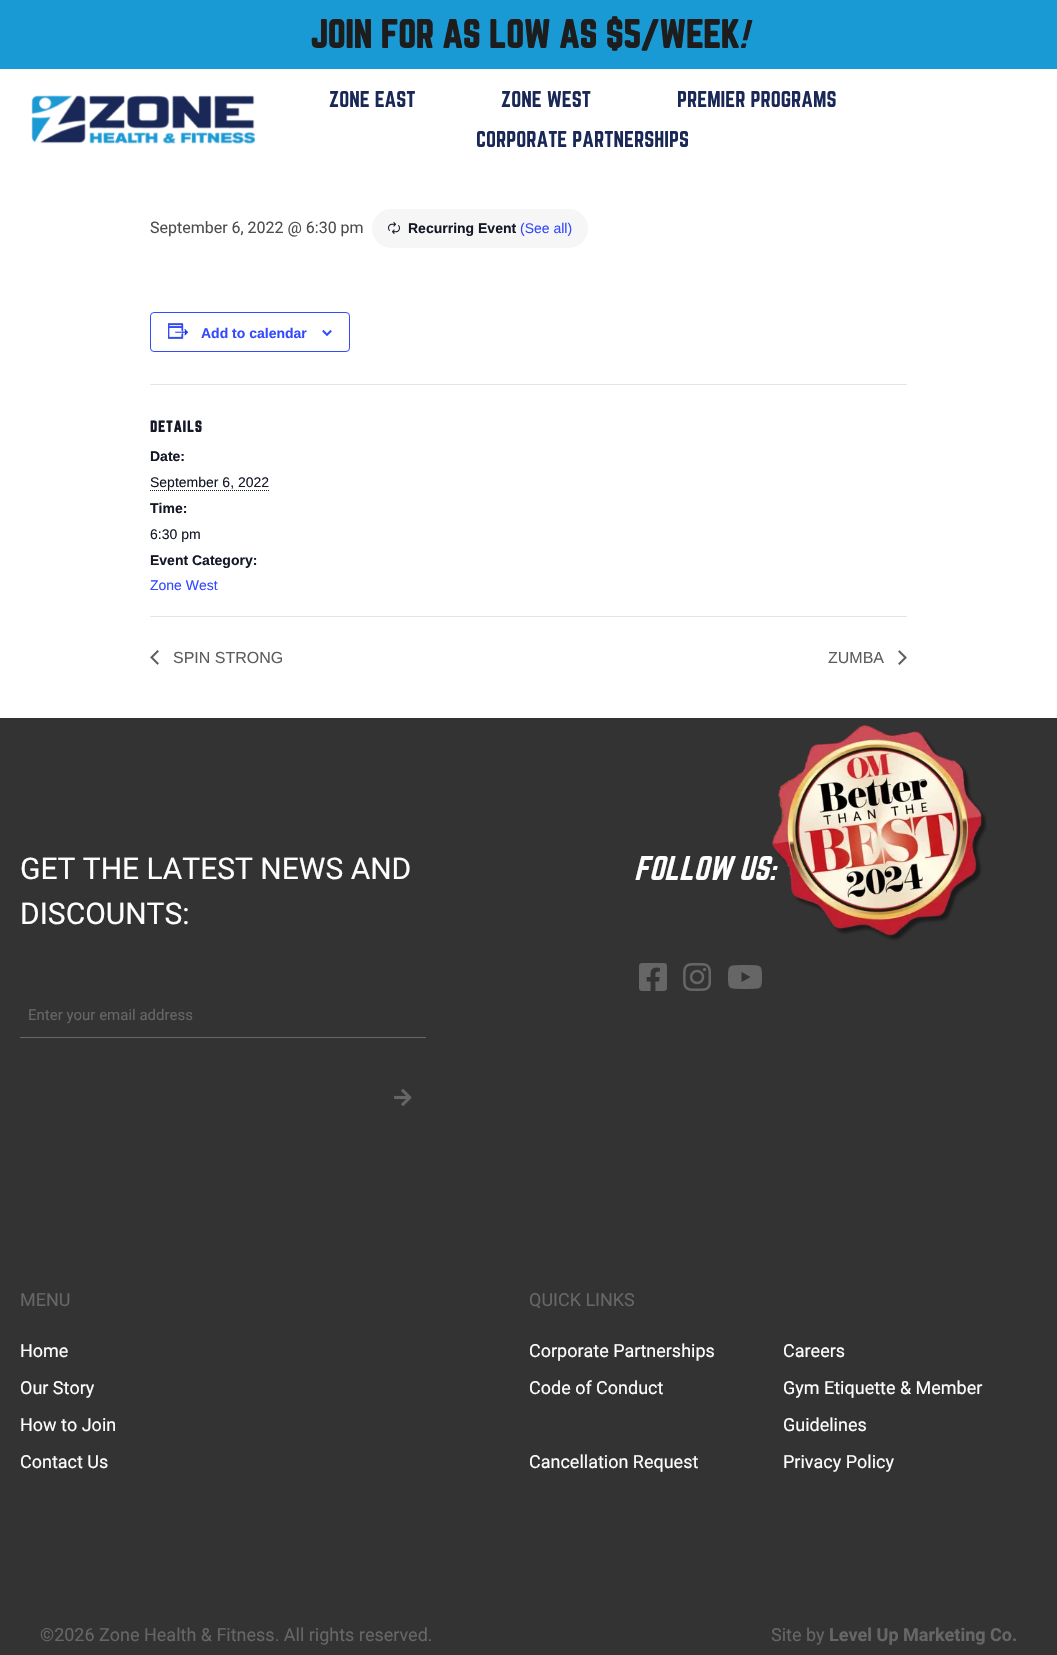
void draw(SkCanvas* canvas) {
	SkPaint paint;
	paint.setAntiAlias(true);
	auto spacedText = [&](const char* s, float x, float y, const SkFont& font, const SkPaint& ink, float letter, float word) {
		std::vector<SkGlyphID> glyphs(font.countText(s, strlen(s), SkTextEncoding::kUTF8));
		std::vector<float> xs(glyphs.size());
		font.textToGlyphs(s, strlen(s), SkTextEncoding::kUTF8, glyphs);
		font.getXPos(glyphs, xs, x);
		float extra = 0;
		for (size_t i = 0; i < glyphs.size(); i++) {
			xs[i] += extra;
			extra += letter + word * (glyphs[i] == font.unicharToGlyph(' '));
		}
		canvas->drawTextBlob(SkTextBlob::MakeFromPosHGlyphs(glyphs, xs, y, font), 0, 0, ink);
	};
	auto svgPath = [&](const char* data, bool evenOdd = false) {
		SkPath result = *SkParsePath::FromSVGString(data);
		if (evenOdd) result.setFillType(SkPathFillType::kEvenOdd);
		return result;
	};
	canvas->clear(0xffffffff);
	paint.setColor(0xff1a9ad5);
	canvas->drawRect(SkRect::MakeXYWH(0, 0, 1057, 69), paint);
	SkFont f1(fontMgr->matchFamilyStyle("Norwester", SkFontStyle::Bold()), 35);
	f1.setSubpixel(true);
	paint.setColor(0xff1d1d1d);
	canvas->drawString("JOIN FOR AS LOW AS $5/WEEK", 310, 48, f1, paint);
	SkFont f2(fontMgr->matchFamilyStyle("Norwester", SkFontStyle::Italic()), 35);
	f2.setSubpixel(true);
	canvas->drawString("!", 739, 48, f2, paint);
	canvas->drawImageRect(SkImages::DeferredFromEncodedData(SkData::MakeFromFileName("img1.png")), SkRect::MakeXYWH(31, 95, 225, 49), SkSamplingOptions());
	SkFont f3(fontMgr->matchFamilyStyle("Norwester", SkFontStyle::Normal()), 20);
	f3.setSubpixel(true);
	paint.setColor(0xff192857);
	canvas->drawString("ZONE EAST", 329, 107, f3, paint);
	canvas->drawString("ZONE WEST", 501, 107, f3, paint);
	canvas->drawString("PREMIER PROGRAMS", 677, 107, f3, paint);
	canvas->drawString("CORPORATE PARTNERSHIPS", 476, 147, f3, paint);
	SkFont f4(fontMgr->matchFamilyStyle("Roboto", SkFontStyle::Normal()), 16);
	f4.setSubpixel(true);
	paint.setColor(0xff4d4d4d);
	canvas->drawString("September 6, 2022 @ 6:30 pm", 150, 233, f4, paint);
	paint.setColor(0xfff7f6f6);
	canvas->drawRoundRect(SkRect::MakeXYWH(372, 209, 216, 39), 19.5, 19.5, paint);
	canvas->drawImageRect(SkImages::DeferredFromEncodedData(SkData::MakeFromFileName("img2.png")), SkRect::MakeXYWH(388, 222, 12, 12), SkSamplingOptions());
	SkFont f5(fontMgr->matchFamilyStyle("Liberation Sans", SkFontStyle::Bold()), 14);
	f5.setSubpixel(true);
	paint.setColor(0xff141827);
	canvas->drawString("Recurring Event", 408, 233, f5, paint);
	SkFont f6(fontMgr->matchFamilyStyle("Liberation Sans", SkFontStyle::Normal()), 14);
	f6.setSubpixel(true);
	paint.setColor(0xff334aff);
	canvas->drawString("(See all)", 520, 233, f6, paint);
	paint.setStroke(true);
	paint.setStrokeWidth(1);
	canvas->drawRoundRect(SkRect::MakeXYWH(150.5, 312.5, 199, 39), 3.5, 3.5, paint);
	canvas->drawImageRect(SkImages::DeferredFromEncodedData(SkData::MakeFromFileName("img3.png")), SkRect::MakeXYWH(168, 323, 21, 16), SkSamplingOptions());
	paint.setStroke(false);
	canvas->drawString("Add to calendar", 201, 338, f5, paint);
	canvas->drawImageRect(SkImages::DeferredFromEncodedData(SkData::MakeFromFileName("img4.png")), SkRect::MakeXYWH(322, 330, 10, 6), SkSamplingOptions());
	paint.setColor(0xffe4e4e4);
	canvas->drawRect(SkRect::MakeXYWH(150, 384, 757, 1), paint);
	SkFont f7(fontMgr->matchFamilyStyle("Norwester", SkFontStyle::Bold()), 14);
	f7.setSubpixel(true);
	paint.setColor(0xff141827);
	spacedText("DETAILS", 150, 432, f7, paint, 1, 0);
	canvas->drawString("Date:", 150, 461, f5, paint);
	canvas->drawString("September 6, 2022", 150, 487, f6, paint);
	paint.setStroke(true);
	paint.setColor(0xff1d1d1d);
	paint.setPathEffect(SkDashPathEffect::Make({{1, 1}}, 0));
	canvas->drawPath(svgPath("M150 490.5H269"), paint);
	paint.setPathEffect(nullptr);
	paint.setStroke(false);
	paint.setColor(0xff141827);
	canvas->drawString("Time:", 150, 513, f5, paint);
	canvas->drawString("6:30 pm", 150, 539, f6, paint);
	canvas->drawString("Event Category:", 150, 565, f5, paint);
	paint.setColor(0xff334aff);
	canvas->drawString("Zone West", 150, 590, f6, paint);
	paint.setColor(0xffe4e4e4);
	canvas->drawRect(SkRect::MakeXYWH(150, 616, 757, 1), paint);
	canvas->drawImageRect(SkImages::DeferredFromEncodedData(SkData::MakeFromFileName("img5.png")), SkRect::MakeXYWH(150, 650, 9, 15), SkSamplingOptions());
	SkFont f8(fontMgr->matchFamilyStyle("Liberation Sans", SkFontStyle::Normal()), 16);
	f8.setSubpixel(true);
	paint.setColor(0xff5d5d5d);
	canvas->drawString("SPIN STRONG", 173, 663, f8, paint);
	canvas->drawString("ZUMBA", 828, 663, f8, paint);
	canvas->drawImageRect(SkImages::DeferredFromEncodedData(SkData::MakeFromFileName("img6.png")), SkRect::MakeXYWH(898, 650, 9, 15), SkSamplingOptions());
	paint.setColor(0xff333333);
	canvas->drawRect(SkRect::MakeXYWH(0, 718, 1057, 937), paint);
	canvas->drawImageRect(SkImages::DeferredFromEncodedData(SkData::MakeFromFileName("img7.png")), SkRect::MakeXYWH(772, 725, 215, 216), SkSamplingOptions());
	SkFont f9(fontMgr->matchFamilyStyle("Roboto", SkFontStyle::Normal()), 30);
	f9.setSubpixel(true);
	paint.setColor(0xffffffff);
	canvas->drawString("GET THE LATEST NEWS AND", 20, 879, f9, paint);
	canvas->drawString("DISCOUNTS:", 20, 924, f9, paint);
	paint.setColor(0xff666666);
	canvas->drawRect(SkRect::MakeXYWH(20, 1037, 406, 1), paint);
	SkFont f10(fontMgr->matchFamilyStyle("Roboto", SkFontStyle::Normal()), 15);
	f10.setSubpixel(true);
	canvas->drawString("Enter your email address", 28, 1020, f10, paint);
	canvas->drawImageRect(SkImages::DeferredFromEncodedData(SkData::MakeFromFileName("img8.png")), SkRect::MakeXYWH(394, 1089, 18, 17), SkSamplingOptions());
	SkFont f11(fontMgr->matchFamilyStyle("Norwester", SkFontStyle::Italic()), 30);
	f11.setSubpixel(true);
	paint.setColor(0xffffffff);
	canvas->drawString("FOLLOW US:", 634, 880, f11, paint);
	canvas->drawImageRect(SkImages::DeferredFromEncodedData(SkData::MakeFromFileName("img9.png")), SkRect::MakeXYWH(639, 963, 28, 28), SkSamplingOptions());
	canvas->drawImageRect(SkImages::DeferredFromEncodedData(SkData::MakeFromFileName("img10.png")), SkRect::MakeXYWH(683, 963, 28, 28), SkSamplingOptions());
	canvas->drawImageRect(SkImages::DeferredFromEncodedData(SkData::MakeFromFileName("img11.png")), SkRect::MakeXYWH(728, 965, 34, 24), SkSamplingOptions());
	SkFont f12(fontMgr->matchFamilyStyle("Roboto", SkFontStyle::Normal()), 18);
	f12.setSubpixel(true);
	paint.setColor(0xff666666);
	canvas->drawString("MENU", 20, 1306, f12, paint);
	paint.setColor(0xffffffff);
	canvas->drawString("Home", 20, 1357, f12, paint);
	canvas->drawString("Our Story", 20, 1394, f12, paint);
	canvas->drawString("How to Join", 20, 1431, f12, paint);
	canvas->drawString("Contact Us", 20, 1468, f12, paint);
	paint.setColor(0xff666666);
	canvas->drawString("QUICK LINKS", 529, 1306, f12, paint);
	paint.setColor(0xffffffff);
	canvas->drawString("Corporate Partnerships", 529, 1357, f12, paint);
	canvas->drawString("Careers", 783, 1357, f12, paint);
	canvas->drawString("Code of Conduct", 529, 1394, f12, paint);
	canvas->drawString("Gym Etiquette & Member", 783, 1394, f12, paint);
	canvas->drawString("Guidelines", 783, 1431, f12, paint);
	canvas->drawString("Cancellation Request", 529, 1468, f12, paint);
	canvas->drawString("Privacy Policy", 783, 1468, f12, paint);
	paint.setColor(0xff666666);
	canvas->drawString("©2026 Zone Health & Fitness. All rights reserved.", 40, 1641, f12, paint);
	canvas->drawString("Site by", 771, 1641, f12, paint);
	SkFont f13(fontMgr->matchFamilyStyle("Roboto", SkFontStyle::Bold()), 18);
	f13.setSubpixel(true);
	canvas->drawString("Level Up Marketing Co.", 829, 1641, f13, paint);
}
